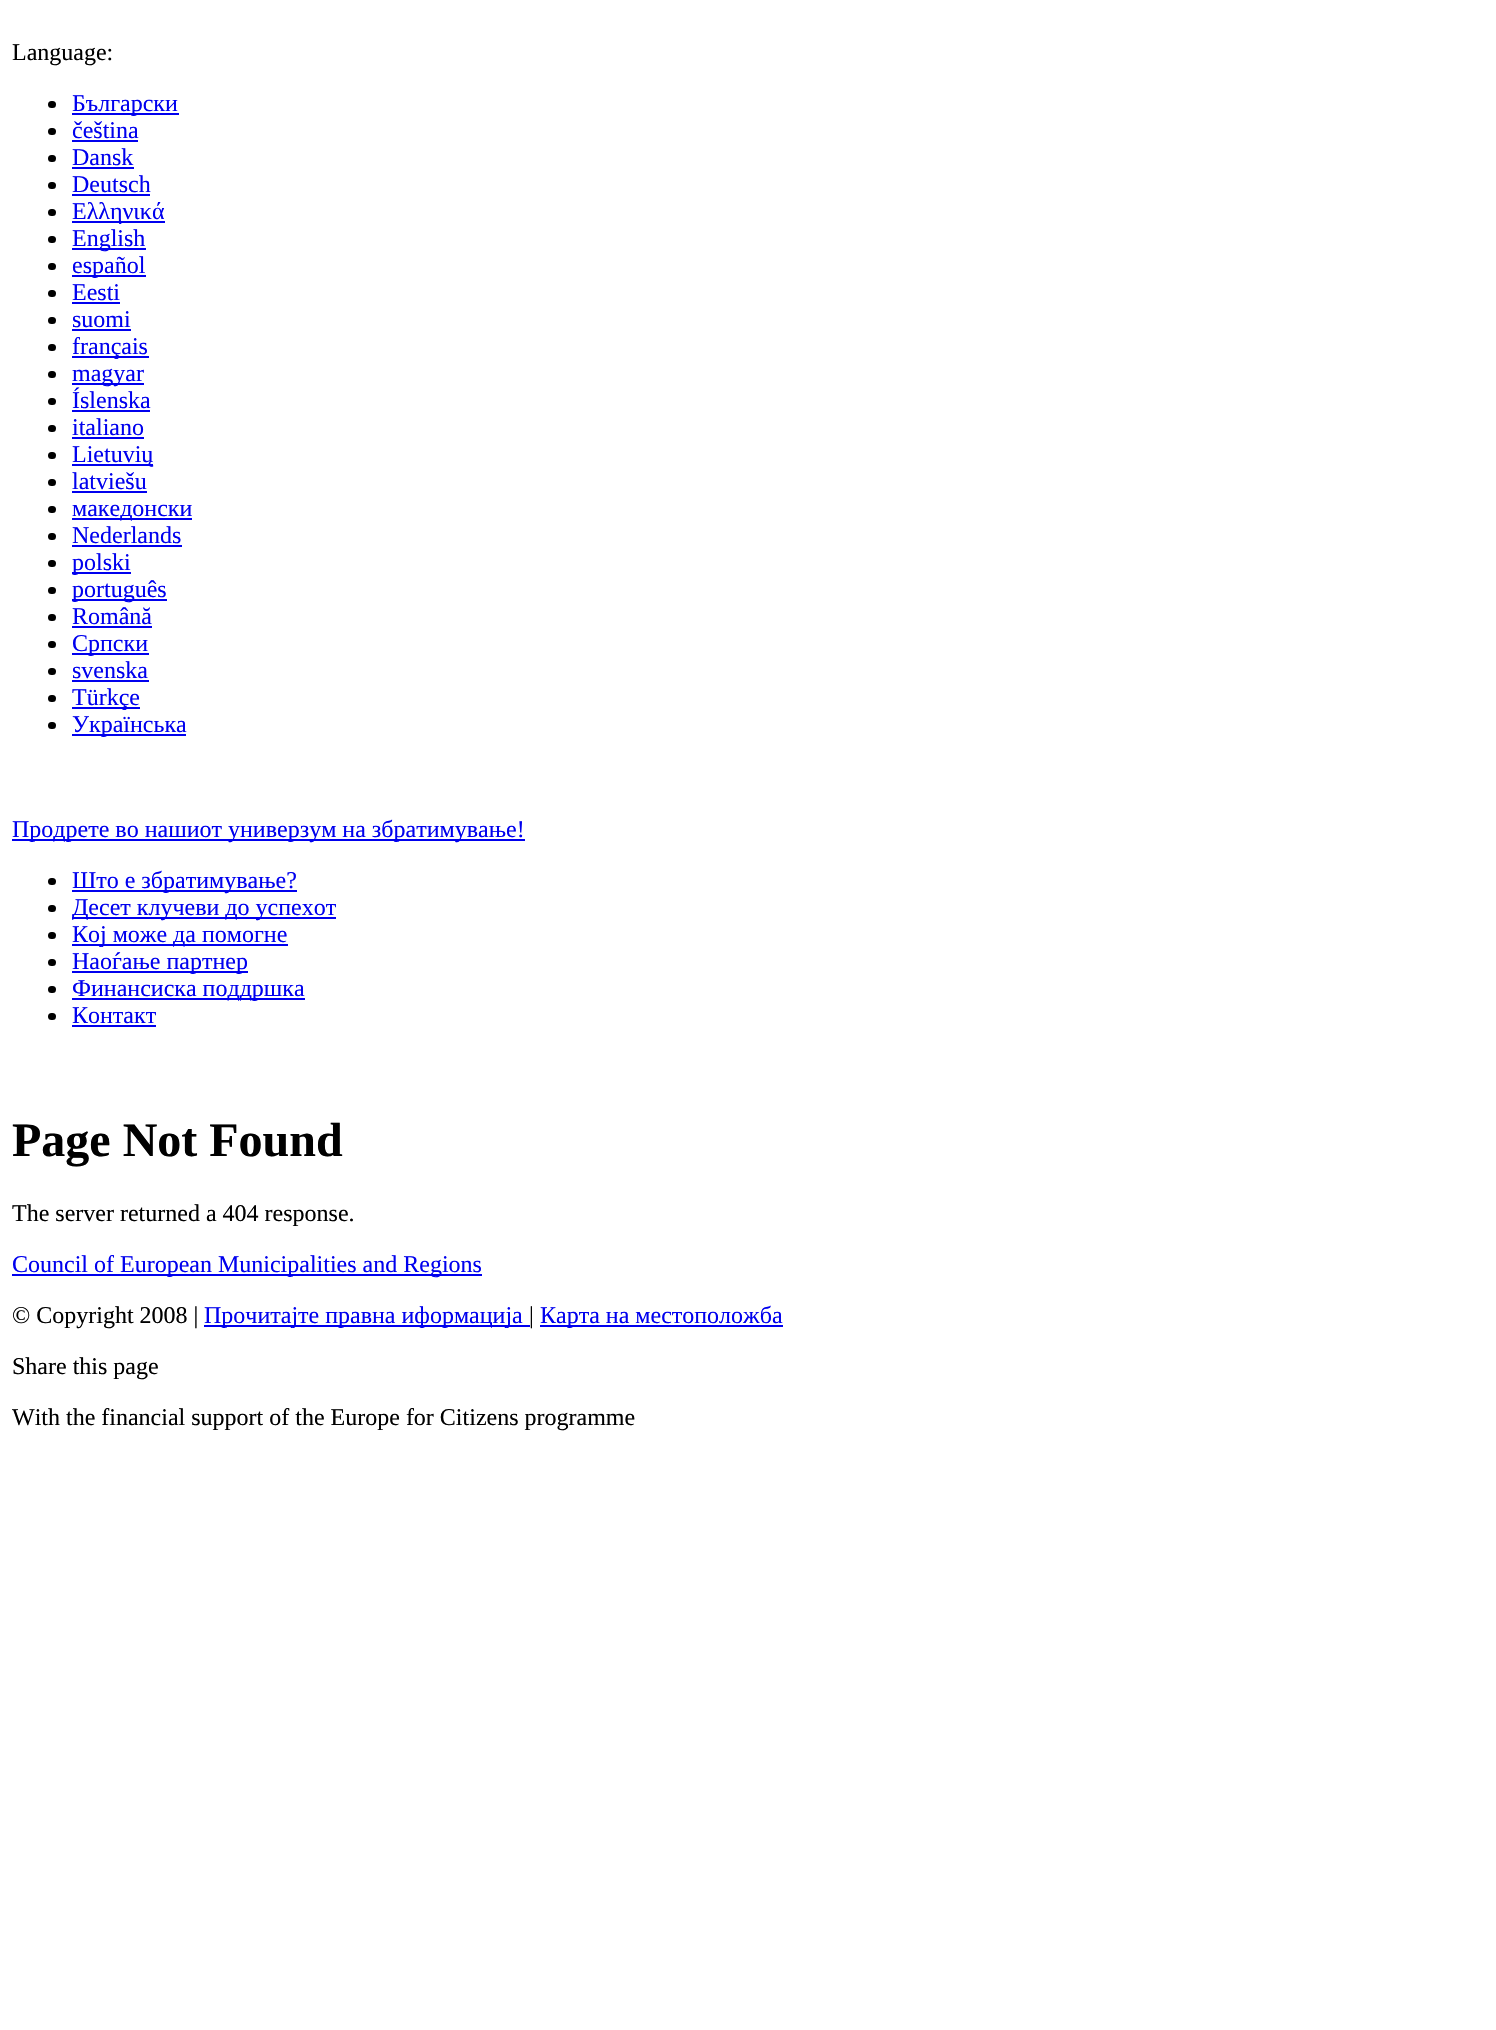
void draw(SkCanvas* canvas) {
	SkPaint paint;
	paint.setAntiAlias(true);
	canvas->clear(0xffffffff);
	SkFont f1(fontMgr->matchFamilyStyle("Liberation Serif", SkFontStyle::Normal()), 24);
	f1.setSubpixel(true);
	paint.setColor(0xff000000);
	canvas->drawString("Language:", 12, 60, f1, paint);
	canvas->drawRoundRect(SkRect::MakeXYWH(48, 101, 8, 7), 3.5, 3.5, paint);
	paint.setColor(0xff0000ee);
	canvas->drawRect(SkRect::MakeXYWH(72, 113, 107, 2), paint);
	canvas->drawString("Български", 72, 111, f1, paint);
	paint.setColor(0xff000000);
	canvas->drawRoundRect(SkRect::MakeXYWH(48, 128, 8, 7), 3.5, 3.5, paint);
	paint.setColor(0xff0000ee);
	canvas->drawString("čeština", 72, 138, f1, paint);
	canvas->drawRect(SkRect::MakeXYWH(72, 140, 66, 2), paint);
	paint.setColor(0xff000000);
	canvas->drawRoundRect(SkRect::MakeXYWH(48, 155, 8, 7), 3.5, 3.5, paint);
	paint.setColor(0xff0000ee);
	canvas->drawString("Dansk", 72, 165, f1, paint);
	canvas->drawRect(SkRect::MakeXYWH(72, 167, 62, 2), paint);
	paint.setColor(0xff000000);
	canvas->drawRoundRect(SkRect::MakeXYWH(48, 182, 8, 7), 3.5, 3.5, paint);
	paint.setColor(0xff0000ee);
	canvas->drawString("Deutsch", 72, 192, f1, paint);
	canvas->drawRect(SkRect::MakeXYWH(72, 194, 78, 2), paint);
	paint.setColor(0xff000000);
	canvas->drawRoundRect(SkRect::MakeXYWH(48, 209, 8, 7), 3.5, 3.5, paint);
	paint.setColor(0xff0000ee);
	canvas->drawRect(SkRect::MakeXYWH(72, 221, 93, 2), paint);
	canvas->drawString("Ελληνικά", 72, 219, f1, paint);
	paint.setColor(0xff000000);
	canvas->drawRoundRect(SkRect::MakeXYWH(48, 236, 8, 7), 3.5, 3.5, paint);
	paint.setColor(0xff0000ee);
	canvas->drawRect(SkRect::MakeXYWH(72, 248, 74, 2), paint);
	canvas->drawString("English", 72, 246, f1, paint);
	paint.setColor(0xff000000);
	canvas->drawRoundRect(SkRect::MakeXYWH(48, 263, 8, 7), 3.5, 3.5, paint);
	paint.setColor(0xff0000ee);
	canvas->drawRect(SkRect::MakeXYWH(72, 275, 74, 2), paint);
	canvas->drawString("español", 72, 273, f1, paint);
	paint.setColor(0xff000000);
	canvas->drawRoundRect(SkRect::MakeXYWH(48, 290, 8, 7), 3.5, 3.5, paint);
	paint.setColor(0xff0000ee);
	canvas->drawString("Eesti", 72, 300, f1, paint);
	canvas->drawRect(SkRect::MakeXYWH(72, 302, 48, 2), paint);
	paint.setColor(0xff000000);
	canvas->drawRoundRect(SkRect::MakeXYWH(48, 317, 8, 7), 3.5, 3.5, paint);
	paint.setColor(0xff0000ee);
	canvas->drawString("suomi", 72, 327, f1, paint);
	canvas->drawRect(SkRect::MakeXYWH(72, 329, 59, 2), paint);
	paint.setColor(0xff000000);
	canvas->drawRoundRect(SkRect::MakeXYWH(48, 344, 8, 7), 3.5, 3.5, paint);
	paint.setColor(0xff0000ee);
	canvas->drawRect(SkRect::MakeXYWH(72, 356, 77, 2), paint);
	canvas->drawString("français", 72, 354, f1, paint);
	paint.setColor(0xff000000);
	canvas->drawRoundRect(SkRect::MakeXYWH(48, 371, 8, 7), 3.5, 3.5, paint);
	paint.setColor(0xff0000ee);
	canvas->drawRect(SkRect::MakeXYWH(72, 383, 72, 2), paint);
	canvas->drawString("magyar", 72, 381, f1, paint);
	paint.setColor(0xff000000);
	canvas->drawRoundRect(SkRect::MakeXYWH(48, 398, 8, 7), 3.5, 3.5, paint);
	paint.setColor(0xff0000ee);
	canvas->drawString("Íslenska", 72, 408, f1, paint);
	canvas->drawRect(SkRect::MakeXYWH(72, 410, 78, 2), paint);
	paint.setColor(0xff000000);
	canvas->drawRoundRect(SkRect::MakeXYWH(48, 425, 8, 7), 3.5, 3.5, paint);
	paint.setColor(0xff0000ee);
	canvas->drawString("italiano", 72, 435, f1, paint);
	canvas->drawRect(SkRect::MakeXYWH(72, 437, 72, 2), paint);
	paint.setColor(0xff000000);
	canvas->drawRoundRect(SkRect::MakeXYWH(48, 452, 8, 7), 3.5, 3.5, paint);
	paint.setColor(0xff0000ee);
	canvas->drawRect(SkRect::MakeXYWH(72, 464, 81, 2), paint);
	canvas->drawString("Lietuvių", 72, 462, f1, paint);
	paint.setColor(0xff000000);
	canvas->drawRoundRect(SkRect::MakeXYWH(48, 479, 8, 7), 3.5, 3.5, paint);
	paint.setColor(0xff0000ee);
	canvas->drawString("latviešu", 72, 489, f1, paint);
	canvas->drawRect(SkRect::MakeXYWH(72, 491, 75, 2), paint);
	paint.setColor(0xff000000);
	canvas->drawRoundRect(SkRect::MakeXYWH(48, 506, 8, 7), 3.5, 3.5, paint);
	paint.setColor(0xff0000ee);
	canvas->drawRect(SkRect::MakeXYWH(72, 518, 120, 2), paint);
	canvas->drawString("македонски", 72, 516, f1, paint);
	paint.setColor(0xff000000);
	canvas->drawRoundRect(SkRect::MakeXYWH(48, 533, 8, 7), 3.5, 3.5, paint);
	paint.setColor(0xff0000ee);
	canvas->drawString("Nederlands", 72, 543, f1, paint);
	canvas->drawRect(SkRect::MakeXYWH(72, 545, 110, 2), paint);
	paint.setColor(0xff000000);
	canvas->drawRoundRect(SkRect::MakeXYWH(48, 560, 8, 7), 3.5, 3.5, paint);
	paint.setColor(0xff0000ee);
	canvas->drawRect(SkRect::MakeXYWH(72, 572, 59, 2), paint);
	canvas->drawString("polski", 72, 570, f1, paint);
	paint.setColor(0xff000000);
	canvas->drawRoundRect(SkRect::MakeXYWH(48, 587, 8, 7), 3.5, 3.5, paint);
	paint.setColor(0xff0000ee);
	canvas->drawRect(SkRect::MakeXYWH(72, 599, 95, 2), paint);
	canvas->drawString("português", 72, 597, f1, paint);
	paint.setColor(0xff000000);
	canvas->drawRoundRect(SkRect::MakeXYWH(48, 614, 8, 7), 3.5, 3.5, paint);
	paint.setColor(0xff0000ee);
	canvas->drawString("Română", 72, 624, f1, paint);
	canvas->drawRect(SkRect::MakeXYWH(72, 626, 80, 2), paint);
	paint.setColor(0xff000000);
	canvas->drawRoundRect(SkRect::MakeXYWH(48, 641, 8, 7), 3.5, 3.5, paint);
	paint.setColor(0xff0000ee);
	canvas->drawRect(SkRect::MakeXYWH(72, 653, 77, 2), paint);
	canvas->drawString("Српски", 72, 651, f1, paint);
	paint.setColor(0xff000000);
	canvas->drawRoundRect(SkRect::MakeXYWH(48, 668, 8, 7), 3.5, 3.5, paint);
	paint.setColor(0xff0000ee);
	canvas->drawString("svenska", 72, 678, f1, paint);
	canvas->drawRect(SkRect::MakeXYWH(72, 680, 77, 2), paint);
	paint.setColor(0xff000000);
	canvas->drawRoundRect(SkRect::MakeXYWH(48, 695, 8, 7), 3.5, 3.5, paint);
	paint.setColor(0xff0000ee);
	canvas->drawRect(SkRect::MakeXYWH(72, 707, 68, 2), paint);
	canvas->drawString("Türkçe", 72, 705, f1, paint);
	paint.setColor(0xff000000);
	canvas->drawRoundRect(SkRect::MakeXYWH(48, 722, 8, 7), 3.5, 3.5, paint);
	paint.setColor(0xff0000ee);
	canvas->drawRect(SkRect::MakeXYWH(72, 734, 114, 2), paint);
	canvas->drawString("Українська", 72, 732, f1, paint);
	canvas->drawRect(SkRect::MakeXYWH(12, 839, 513, 2), paint);
	canvas->drawString("Продрете во нашиот универзум на збратимување!", 12, 837, f1, paint);
	paint.setColor(0xff000000);
	canvas->drawRoundRect(SkRect::MakeXYWH(48, 878, 8, 7), 3.5, 3.5, paint);
	paint.setColor(0xff0000ee);
	canvas->drawRect(SkRect::MakeXYWH(72, 890, 225, 2), paint);
	canvas->drawString("Што е збратимување?", 72, 888, f1, paint);
	paint.setColor(0xff000000);
	canvas->drawRoundRect(SkRect::MakeXYWH(48, 905, 8, 7), 3.5, 3.5, paint);
	paint.setColor(0xff0000ee);
	canvas->drawRect(SkRect::MakeXYWH(72, 917, 264, 2), paint);
	canvas->drawString("Десет клучеви до успехот", 72, 915, f1, paint);
	paint.setColor(0xff000000);
	canvas->drawRoundRect(SkRect::MakeXYWH(48, 932, 8, 7), 3.5, 3.5, paint);
	paint.setColor(0xff0000ee);
	canvas->drawRect(SkRect::MakeXYWH(72, 944, 216, 2), paint);
	canvas->drawString("Кој може да помогне", 72, 942, f1, paint);
	paint.setColor(0xff000000);
	canvas->drawRoundRect(SkRect::MakeXYWH(48, 959, 8, 7), 3.5, 3.5, paint);
	paint.setColor(0xff0000ee);
	canvas->drawRect(SkRect::MakeXYWH(72, 971, 176, 2), paint);
	canvas->drawString("Наоѓање партнер", 72, 969, f1, paint);
	paint.setColor(0xff000000);
	canvas->drawRoundRect(SkRect::MakeXYWH(48, 986, 8, 7), 3.5, 3.5, paint);
	paint.setColor(0xff0000ee);
	canvas->drawRect(SkRect::MakeXYWH(72, 998, 233, 2), paint);
	canvas->drawString("Финансиска поддршка", 72, 996, f1, paint);
	paint.setColor(0xff000000);
	canvas->drawRoundRect(SkRect::MakeXYWH(48, 1013, 8, 7), 3.5, 3.5, paint);
	paint.setColor(0xff0000ee);
	canvas->drawString("Контакт", 72, 1023, f1, paint);
	canvas->drawRect(SkRect::MakeXYWH(72, 1025, 84, 2), paint);
	SkFont f2(fontMgr->matchFamilyStyle("Liberation Serif", SkFontStyle::Bold()), 48);
	f2.setSubpixel(true);
	paint.setColor(0xff000000);
	canvas->drawString("Page Not Found", 12, 1156, f2, paint);
	canvas->drawString("The server returned a 404 response.", 12, 1221, f1, paint);
	paint.setColor(0xff0000ee);
	canvas->drawRect(SkRect::MakeXYWH(12, 1274, 470, 2), paint);
	canvas->drawString("Council of European Municipalities and Regions", 12, 1272, f1, paint);
	paint.setColor(0xff000000);
	canvas->drawString("© Copyright 2008 |", 12, 1323, f1, paint);
	paint.setColor(0xff0000ee);
	canvas->drawRect(SkRect::MakeXYWH(204, 1325, 326, 2), paint);
	canvas->drawString("Прочитајте правна иформација", 204, 1323, f1, paint);
	paint.setColor(0xff000000);
	canvas->drawString("|", 529, 1323, f1, paint);
	paint.setColor(0xff0000ee);
	canvas->drawRect(SkRect::MakeXYWH(540, 1325, 243, 2), paint);
	canvas->drawString("Карта на местоположба", 540, 1323, f1, paint);
	paint.setColor(0xff000000);
	canvas->drawString("Share this page", 12, 1374, f1, paint);
	canvas->drawString("With the financial support of the Europe for Citizens programme", 12, 1425, f1, paint);
}
